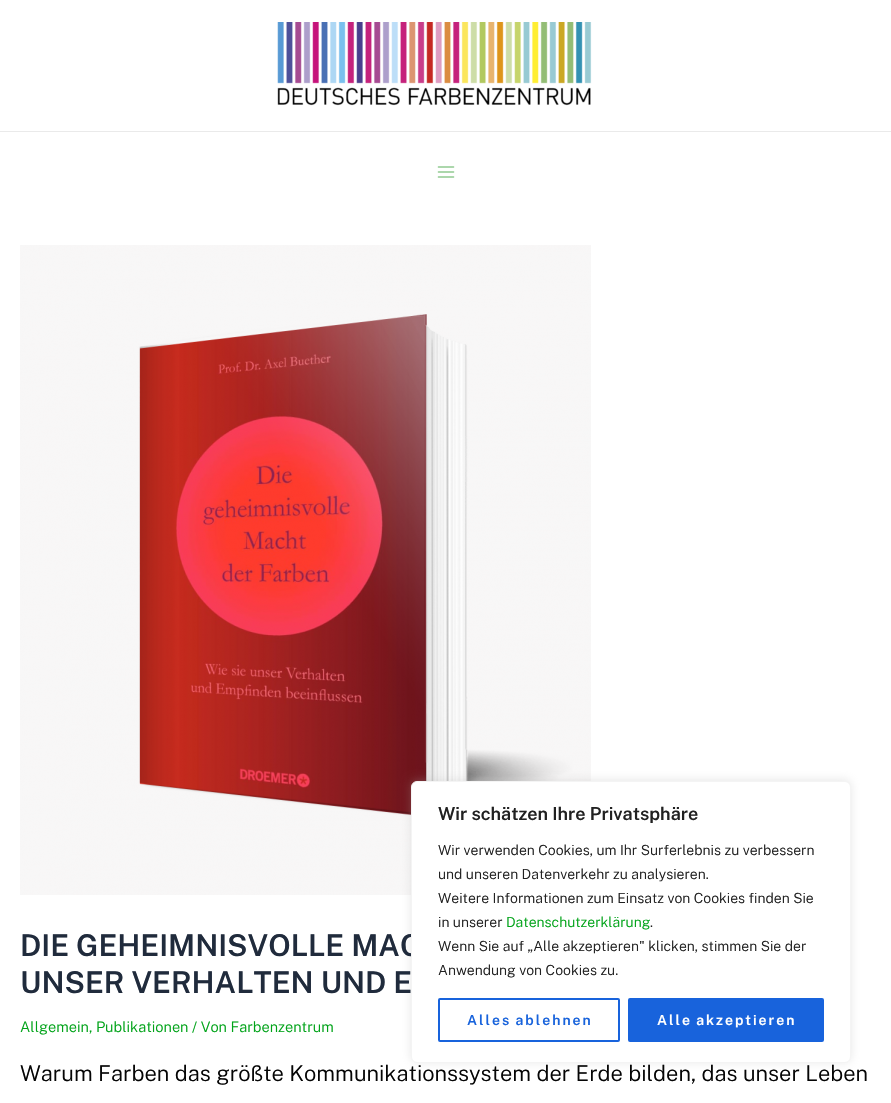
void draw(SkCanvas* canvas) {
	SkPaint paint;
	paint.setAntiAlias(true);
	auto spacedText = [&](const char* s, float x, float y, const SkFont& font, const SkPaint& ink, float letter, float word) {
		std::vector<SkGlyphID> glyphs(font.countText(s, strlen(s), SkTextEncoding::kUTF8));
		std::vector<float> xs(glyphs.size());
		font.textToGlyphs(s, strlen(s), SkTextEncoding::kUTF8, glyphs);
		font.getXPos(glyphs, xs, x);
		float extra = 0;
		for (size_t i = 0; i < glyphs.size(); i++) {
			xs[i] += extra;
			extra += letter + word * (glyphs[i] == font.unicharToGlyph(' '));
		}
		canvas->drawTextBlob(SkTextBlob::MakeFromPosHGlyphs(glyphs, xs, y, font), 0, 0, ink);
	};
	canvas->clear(0xffffffff);
	canvas->drawImageRect(SkImages::DeferredFromEncodedData(SkData::MakeFromFileName("img3.png")), SkRect::MakeXYWH(20, 245, 571, 650), SkSamplingOptions());
	paint.setColor(0x4dacabab);
	paint.setMaskFilter(SkMaskFilter::MakeBlur(kNormal_SkBlurStyle, 5));
	canvas->drawRoundRect(SkRect::MakeXYWH(411, 780, 440, 282), 6, 6, paint);
	paint.setMaskFilter(nullptr);
	SkFont f1(fontMgr->matchFamilyStyle("Public Sans", SkFontStyle(600, SkFontStyle::kNormal_Width, SkFontStyle::kUpright_Slant)), 30);
	f1.setSubpixel(true);
	paint.setColor(0xff202b3c);
	canvas->drawString("DIE GEHEIMNISVOLLE MAC", 20, 956, f1, paint);
	paint.setColor(0xffffffff);
	canvas->drawRoundRect(SkRect::MakeXYWH(411.5, 781.5, 439, 281), 5.5, 5.5, paint);
	paint.setStroke(true);
	paint.setStrokeWidth(1);
	paint.setColor(0xfff4f4f4);
	canvas->drawRoundRect(SkRect::MakeXYWH(411.5, 781.5, 439, 281), 5.5, 5.5, paint);
	SkFont f2(fontMgr->matchFamilyStyle("Public Sans", SkFontStyle(600, SkFontStyle::kNormal_Width, SkFontStyle::kUpright_Slant)), 18);
	f2.setSubpixel(true);
	paint.setStroke(false);
	paint.setColor(0xff212121);
	canvas->drawString("Wir schätzen Ihre Privatsphäre", 438, 820, f2, paint);
	SkFont f3(fontMgr->matchFamilyStyle("Public Sans", SkFontStyle(300, SkFontStyle::kNormal_Width, SkFontStyle::kUpright_Slant)), 14);
	f3.setSubpixel(true);
	canvas->drawString("Wir verwenden Cookies, um Ihr Surferlebnis zu verbessern", 438, 855, f3, paint);
	canvas->drawString("und unseren Datenverkehr zu analysieren.", 438, 879, f3, paint);
	canvas->drawString("Weitere Informationen zum Einsatz von Cookies finden Sie", 438, 903, f3, paint);
	canvas->drawString("in unserer", 438, 927, f3, paint);
	paint.setColor(0xff00a318);
	canvas->drawString("Datenschutzerklärung", 506, 927, f3, paint);
	paint.setColor(0xff212121);
	canvas->drawString(".", 650, 927, f3, paint);
	canvas->drawString("Wenn Sie auf „Alle akzeptieren\" klicken, stimmen Sie der", 438, 951, f3, paint);
	canvas->drawString("Anwendung von Cookies zu.", 438, 975, f3, paint);
	paint.setStroke(true);
	paint.setStrokeWidth(2);
	paint.setColor(0xff1863dc);
	canvas->drawRoundRect(SkRect::MakeXYWH(439, 999, 180, 42), 1, 1, paint);
	SkFont f4(fontMgr->matchFamilyStyle("Public Sans", SkFontStyle(600, SkFontStyle::kNormal_Width, SkFontStyle::kUpright_Slant)), 14);
	f4.setSubpixel(true);
	paint.setStroke(false);
	spacedText("Alles ablehnen", 467, 1025, f4, paint, 2, -1);
	canvas->drawRoundRect(SkRect::MakeXYWH(629, 999, 194, 42), 1, 1, paint);
	paint.setStroke(true);
	canvas->drawRoundRect(SkRect::MakeXYWH(629, 999, 194, 42), 1, 1, paint);
	paint.setStroke(false);
	paint.setColor(0xffffffff);
	spacedText("Alle akzeptieren", 657, 1025, f4, paint, 2, -1);
	paint.setColor(0xffeaeaea);
	canvas->drawRect(SkRect::MakeXYWH(0, 131, 891, 1), paint);
	canvas->drawImageRect(SkImages::DeferredFromEncodedData(SkData::MakeFromFileName("img1.png")), SkRect::MakeXYWH(277, 22, 315, 84), SkSamplingOptions());
	canvas->drawImageRect(SkImages::DeferredFromEncodedData(SkData::MakeFromFileName("img2.png")), SkRect::MakeXYWH(437, 166, 18, 12), SkSamplingOptions());
	paint.setColor(0xff202b3c);
	canvas->drawString("UNSER VERHALTEN UND E", 20, 993, f1, paint);
	SkFont f5(fontMgr->matchFamilyStyle("Public Sans", SkFontStyle(300, SkFontStyle::kNormal_Width, SkFontStyle::kUpright_Slant)), 14.6);
	f5.setSubpixel(true);
	paint.setColor(0xff00a318);
	canvas->drawString("Allgemein, Publikationen / Von Farbenzentrum", 20, 1032, f5, paint);
	SkFont f6(fontMgr->matchFamilyStyle("Public Sans", SkFontStyle(300, SkFontStyle::kNormal_Width, SkFontStyle::kUpright_Slant)), 21.9);
	f6.setSubpixel(true);
	paint.setColor(0xff050505);
	canvas->drawString("Warum Farben das größte Kommunikationssystem der Erde bilden, das unser Leben", 20, 1081, f6, paint);
}
